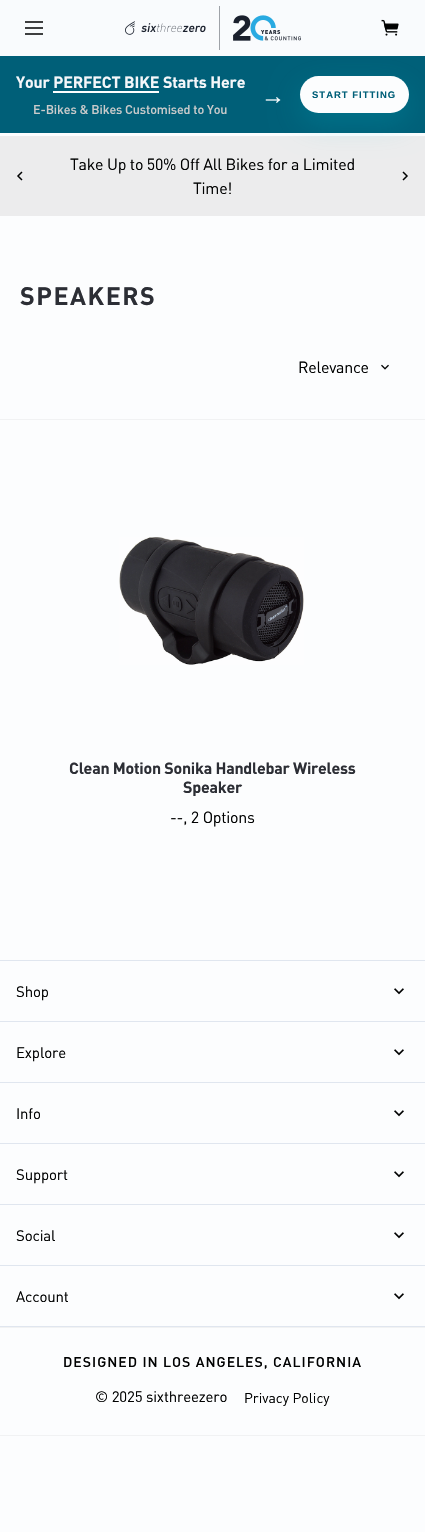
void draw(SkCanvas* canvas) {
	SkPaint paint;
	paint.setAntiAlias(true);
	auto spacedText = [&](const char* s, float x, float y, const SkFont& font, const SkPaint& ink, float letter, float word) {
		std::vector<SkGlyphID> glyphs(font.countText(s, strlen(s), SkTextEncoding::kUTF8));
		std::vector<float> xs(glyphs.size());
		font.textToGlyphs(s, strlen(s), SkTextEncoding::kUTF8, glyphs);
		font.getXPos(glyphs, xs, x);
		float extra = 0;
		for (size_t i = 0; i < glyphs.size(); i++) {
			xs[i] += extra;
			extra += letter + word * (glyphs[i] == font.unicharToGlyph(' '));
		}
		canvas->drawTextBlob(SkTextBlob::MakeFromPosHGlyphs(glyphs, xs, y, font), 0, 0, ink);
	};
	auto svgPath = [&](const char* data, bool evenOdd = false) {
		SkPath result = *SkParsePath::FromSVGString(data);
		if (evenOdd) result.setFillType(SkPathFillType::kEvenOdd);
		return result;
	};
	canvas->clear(0xfffcfdfe);
	paint.setColor(0xfff9fbfd);
	canvas->drawRect(SkRect::MakeXYWH(0, 0, 425, 56), paint);
	canvas->drawImageRect(SkImages::DeferredFromEncodedData(SkData::MakeFromFileName("img1.png")), SkRect::MakeXYWH(25, 21, 18, 14), SkSamplingOptions());
	canvas->drawImageRect(SkImages::DeferredFromEncodedData(SkData::MakeFromFileName("img2.png")), SkRect::MakeXYWH(125, 6, 176, 44), SkSamplingOptions());
	canvas->drawImageRect(SkImages::DeferredFromEncodedData(SkData::MakeFromFileName("img3.png")), SkRect::MakeXYWH(381, 19, 18, 17), SkSamplingOptions());
	paint.setColor(0xff005f78);
	canvas->drawRect(SkRect::MakeXYWH(0, 56, 425, 77), paint);
	SkFont f1(fontMgr->matchFamilyStyle("DIN", SkFontStyle::Bold()), 16);
	f1.setSubpixel(true);
	paint.setColor(0xfff5f7fa);
	spacedText("Your PERFECT BIKE", 16, 88, f1, paint, -0.15, 0);
	spacedText("Starts Here", 163, 88, f1, paint, -0.15, 0);
	paint.setColor(0xfffcfdfe);
	canvas->drawRect(SkRect::MakeXYWH(53, 91, 106, 2), paint);
	SkFont f2(fontMgr->matchFamilyStyle("DIN", SkFontStyle(500, SkFontStyle::kNormal_Width, SkFontStyle::kUpright_Slant)), 12.6);
	f2.setSubpixel(true);
	paint.setColor(0xffcacbcb);
	spacedText("E-Bikes & Bikes Customised to You", 33, 114, f2, paint, -0.15, 0);
	paint.setColor(0xffececed);
	canvas->drawRect(SkRect::MakeXYWH(0, 136, 425, 80), paint);
	paint.setColor(0x3300c3d0);
	paint.setMaskFilter(SkMaskFilter::MakeBlur(kNormal_SkBlurStyle, 15));
	canvas->drawRoundRect(SkRect::MakeXYWH(300, 86, 109, 37), 18.5, 18.5, paint);
	paint.setMaskFilter(nullptr);
	paint.setColor(0xfffcfdfe);
	canvas->drawRoundRect(SkRect::MakeXYWH(300, 76, 109, 37), 18.5, 18.5, paint);
	SkFont f3(fontMgr->matchFamilyStyle("Liberation Sans", SkFontStyle::Bold()), 9.5);
	f3.setSubpixel(true);
	paint.setColor(0xff005f78);
	spacedText("START FITTING", 312, 98, f3, paint, 1, 0);
	SkFont f4(fontMgr->matchFamilyStyle("Liberation Sans", SkFontStyle::Normal()), 24);
	f4.setSubpixel(true);
	paint.setColor(0xfffcfdfe);
	canvas->drawString("→", 261, 104, f4, paint);
	paint.setStroke(true);
	paint.setStrokeWidth(1.5);
	paint.setColor(0xff000101);
	canvas->drawPath(svgPath("M22 180L18 176L22 172"), paint);
	SkFont f5(fontMgr->matchFamilyStyle("DIN", SkFontStyle::Normal()), 16);
	f5.setSubpixel(true);
	paint.setStroke(false);
	spacedText("Take Up to 50% Off All Bikes for a Limited", 70, 170, f5, paint, -0.25, 0);
	spacedText("Time!", 193, 194, f5, paint, -0.25, 0);
	paint.setStroke(true);
	canvas->drawPath(svgPath("M403 172L407 176L403 180"), paint);
	SkFont f6(fontMgr->matchFamilyStyle("DIN", SkFontStyle::Bold()), 25);
	f6.setSubpixel(true);
	paint.setStroke(false);
	paint.setColor(0xff2c2e35);
	spacedText("SPEAKERS", 20, 305, f6, paint, 1.5, 0);
	paint.setColor(0xff000101);
	spacedText("Relevance", 298, 373, f5, paint, -0.25, 0);
	canvas->drawImageRect(SkImages::DeferredFromEncodedData(SkData::MakeFromFileName("img4.png")), SkRect::MakeXYWH(381, 364, 8, 6), SkSamplingOptions());
	paint.setColor(0xfff1f2f3);
	canvas->drawRect(SkRect::MakeXYWH(0, 419, 425, 1), paint);
	canvas->drawImageRect(SkImages::DeferredFromEncodedData(SkData::MakeFromFileName("img5.png")), SkRect::MakeXYWH(119, 537, 185, 128), SkSamplingOptions());
	paint.setColor(0xff2c2e35);
	spacedText("Clean Motion Sonika Handlebar Wireless", 69, 774, f1, paint, -0.25, 0);
	spacedText("Speaker", 183, 793, f1, paint, -0.25, 0);
	paint.setColor(0xff000101);
	spacedText("--, 2 Options", 170, 823, f5, paint, -0.25, 0);
	paint.setColor(0xffe0e6ef);
	canvas->drawRect(SkRect::MakeXYWH(0, 960, 425, 1), paint);
	SkFont f7(fontMgr->matchFamilyStyle("DIN", SkFontStyle::Normal()), 15);
	f7.setSubpixel(true);
	paint.setColor(0xff000101);
	spacedText("Shop", 16, 997, f7, paint, -0.15, 0);
	canvas->drawImageRect(SkImages::DeferredFromEncodedData(SkData::MakeFromFileName("img6.png")), SkRect::MakeXYWH(394, 988, 10, 7), SkSamplingOptions());
	paint.setColor(0xffe0e6ef);
	canvas->drawRect(SkRect::MakeXYWH(0, 1021, 425, 1), paint);
	paint.setColor(0xff000101);
	spacedText("Explore", 16, 1058, f7, paint, -0.15, 0);
	canvas->drawImageRect(SkImages::DeferredFromEncodedData(SkData::MakeFromFileName("img7.png")), SkRect::MakeXYWH(394, 1049, 10, 7), SkSamplingOptions());
	paint.setColor(0xffe0e6ef);
	canvas->drawRect(SkRect::MakeXYWH(0, 1082, 425, 1), paint);
	paint.setColor(0xff000101);
	spacedText("Info", 16, 1119, f7, paint, -0.15, 0);
	canvas->drawImageRect(SkImages::DeferredFromEncodedData(SkData::MakeFromFileName("img7.png")), SkRect::MakeXYWH(394, 1110, 10, 7), SkSamplingOptions());
	paint.setColor(0xffe0e6ef);
	canvas->drawRect(SkRect::MakeXYWH(0, 1143, 425, 1), paint);
	paint.setColor(0xff000101);
	spacedText("Support", 16, 1180, f7, paint, -0.15, 0);
	canvas->drawImageRect(SkImages::DeferredFromEncodedData(SkData::MakeFromFileName("img7.png")), SkRect::MakeXYWH(394, 1171, 10, 7), SkSamplingOptions());
	paint.setColor(0xffe0e6ef);
	canvas->drawRect(SkRect::MakeXYWH(0, 1204, 425, 1), paint);
	paint.setColor(0xff000101);
	spacedText("Social", 16, 1241, f7, paint, -0.15, 0);
	canvas->drawImageRect(SkImages::DeferredFromEncodedData(SkData::MakeFromFileName("img7.png")), SkRect::MakeXYWH(394, 1232, 10, 7), SkSamplingOptions());
	paint.setColor(0xffe0e6ef);
	canvas->drawRect(SkRect::MakeXYWH(0, 1265, 425, 1), paint);
	canvas->drawRect(SkRect::MakeXYWH(0, 1326, 425, 1), paint);
	paint.setColor(0xff000101);
	spacedText("Account", 16, 1302, f7, paint, -0.15, 0);
	canvas->drawImageRect(SkImages::DeferredFromEncodedData(SkData::MakeFromFileName("img7.png")), SkRect::MakeXYWH(394, 1293, 10, 7), SkSamplingOptions());
	paint.setColor(0xfff1f2f3);
	canvas->drawRect(SkRect::MakeXYWH(0, 1327, 425, 1), paint);
	canvas->drawRect(SkRect::MakeXYWH(0, 1435, 425, 1), paint);
	SkFont f8(fontMgr->matchFamilyStyle("DIN", SkFontStyle(500, SkFontStyle::kNormal_Width, SkFontStyle::kUpright_Slant)), 14);
	f8.setSubpixel(true);
	paint.setColor(0xff000101);
	spacedText("DESIGNED IN LOS ANGELES, CALIFORNIA", 63, 1367, f8, paint, 1, 0);
	spacedText("© 2025 sixthreezero", 95, 1402, f7, paint, -0.15, 0);
	SkFont f9(fontMgr->matchFamilyStyle("DIN", SkFontStyle::Normal()), 14);
	f9.setSubpixel(true);
	canvas->drawString("Privacy Policy", 244, 1403, f9, paint);
}
